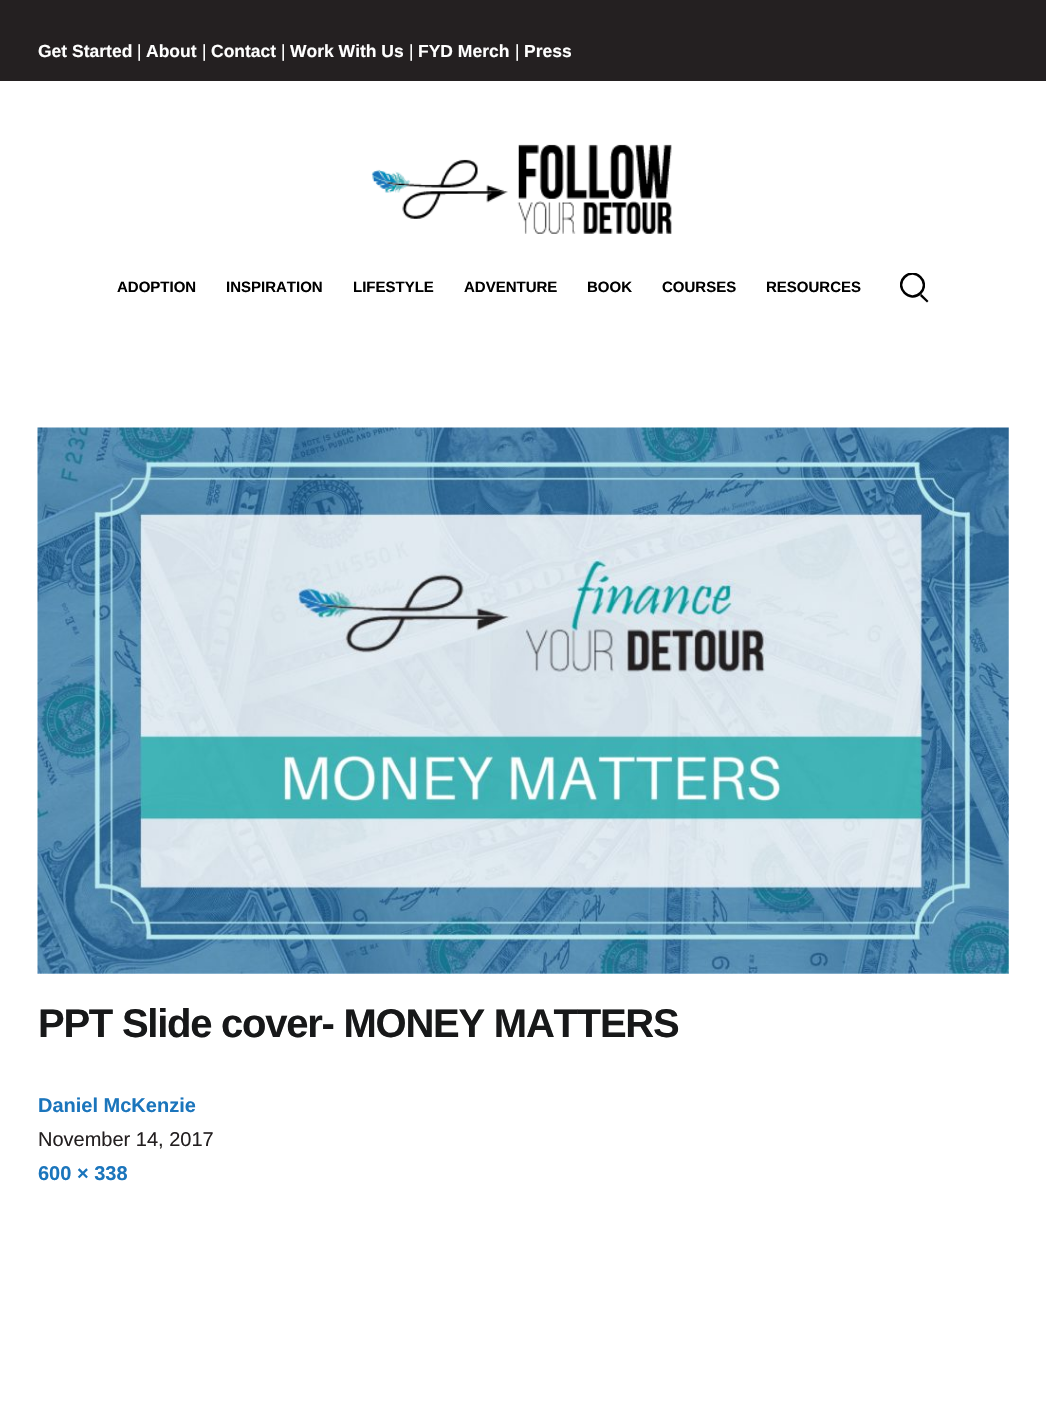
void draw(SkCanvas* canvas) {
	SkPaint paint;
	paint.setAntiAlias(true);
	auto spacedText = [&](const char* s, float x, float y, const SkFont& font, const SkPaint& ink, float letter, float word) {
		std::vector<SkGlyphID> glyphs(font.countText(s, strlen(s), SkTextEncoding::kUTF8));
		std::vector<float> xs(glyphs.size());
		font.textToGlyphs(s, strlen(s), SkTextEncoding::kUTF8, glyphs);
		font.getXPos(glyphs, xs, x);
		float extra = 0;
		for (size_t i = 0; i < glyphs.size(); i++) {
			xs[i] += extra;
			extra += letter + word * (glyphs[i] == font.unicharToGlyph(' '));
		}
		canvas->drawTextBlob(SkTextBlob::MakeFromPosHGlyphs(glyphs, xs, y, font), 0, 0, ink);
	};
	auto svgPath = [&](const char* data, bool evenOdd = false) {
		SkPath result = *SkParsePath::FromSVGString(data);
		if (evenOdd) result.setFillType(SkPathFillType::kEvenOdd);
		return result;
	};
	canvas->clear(0xffffffff);
	paint.setColor(0xff242021);
	canvas->drawRect(SkRect::MakeXYWH(0, 0, 1046, 81), paint);
	SkFont f1(fontMgr->matchFamilyStyle("Arimo", SkFontStyle::Bold()), 17.5);
	f1.setSubpixel(true);
	paint.setColor(0xffffffff);
	canvas->drawString("Get Started", 38, 57, f1, paint);
	SkFont f2(fontMgr->matchFamilyStyle("Arimo", SkFontStyle::Normal()), 17.5);
	f2.setSubpixel(true);
	canvas->drawString("|", 137, 57, f2, paint);
	canvas->drawString("About", 146, 57, f1, paint);
	canvas->drawString("|", 202, 57, f2, paint);
	canvas->drawString("Contact", 211, 57, f1, paint);
	canvas->drawString("|", 281, 57, f2, paint);
	canvas->drawString("Work With Us", 290, 57, f1, paint);
	canvas->drawString("|", 409, 57, f2, paint);
	canvas->drawString("FYD Merch", 418, 57, f1, paint);
	canvas->drawString("|", 515, 57, f2, paint);
	canvas->drawString("Press", 524, 57, f1, paint);
	canvas->drawImageRect(SkImages::DeferredFromEncodedData(SkData::MakeFromFileName("img1.png")), SkRect::MakeXYWH(371, 144, 301, 90), SkSamplingOptions());
	SkFont f3(fontMgr->matchFamilyStyle("Arimo", SkFontStyle::Bold()), 15);
	f3.setSubpixel(true);
	paint.setColor(0xff000000);
	canvas->drawString("ADOPTION", 117, 292, f3, paint);
	canvas->drawString("INSPIRATION", 226, 292, f3, paint);
	canvas->drawString("LIFESTYLE", 353, 292, f3, paint);
	canvas->drawString("ADVENTURE", 464, 292, f3, paint);
	canvas->drawString("BOOK", 587, 292, f3, paint);
	canvas->drawString("COURSES", 662, 292, f3, paint);
	canvas->drawString("RESOURCES", 766, 292, f3, paint);
	canvas->save();
	canvas->clipRect(SkRect::MakeXYWH(900, 273, 25, 25));
	paint.setStroke(true);
	paint.setStrokeWidth(2.5);
	canvas->drawPath(svgPath("M904.5 277C915 266.5 931 282.5 920.5 293C910 303.5 894 287.5 904.5 277"), paint);
	canvas->restore();
	paint.setStroke(false);
	canvas->drawPath(svgPath("M920 296L921.5 294L928.5 301L927 302.5Z"), paint);
	canvas->drawImageRect(SkImages::DeferredFromEncodedData(SkData::MakeFromFileName("img2.png")), SkRect::MakeXYWH(37, 427, 972, 547), SkSamplingOptions());
	SkFont f4(fontMgr->matchFamilyStyle("Arimo", SkFontStyle::Bold()), 40);
	f4.setSubpixel(true);
	paint.setColor(0xff171819);
	spacedText("PPT Slide cover- MONEY MATTERS", 38, 1037, f4, paint, -1.25, 0);
	SkFont f5(fontMgr->matchFamilyStyle("Arimo", SkFontStyle::Bold()), 20);
	f5.setSubpixel(true);
	paint.setColor(0xff1b75bc);
	canvas->drawString("Daniel McKenzie", 38, 1112, f5, paint);
	SkFont f6(fontMgr->matchFamilyStyle("Arimo", SkFontStyle::Normal()), 20);
	f6.setSubpixel(true);
	paint.setColor(0xff231f20);
	canvas->drawString("November 14, 2017", 38, 1146, f6, paint);
	paint.setColor(0xff1b75bc);
	canvas->drawString("600 × 338", 38, 1180, f5, paint);
}
